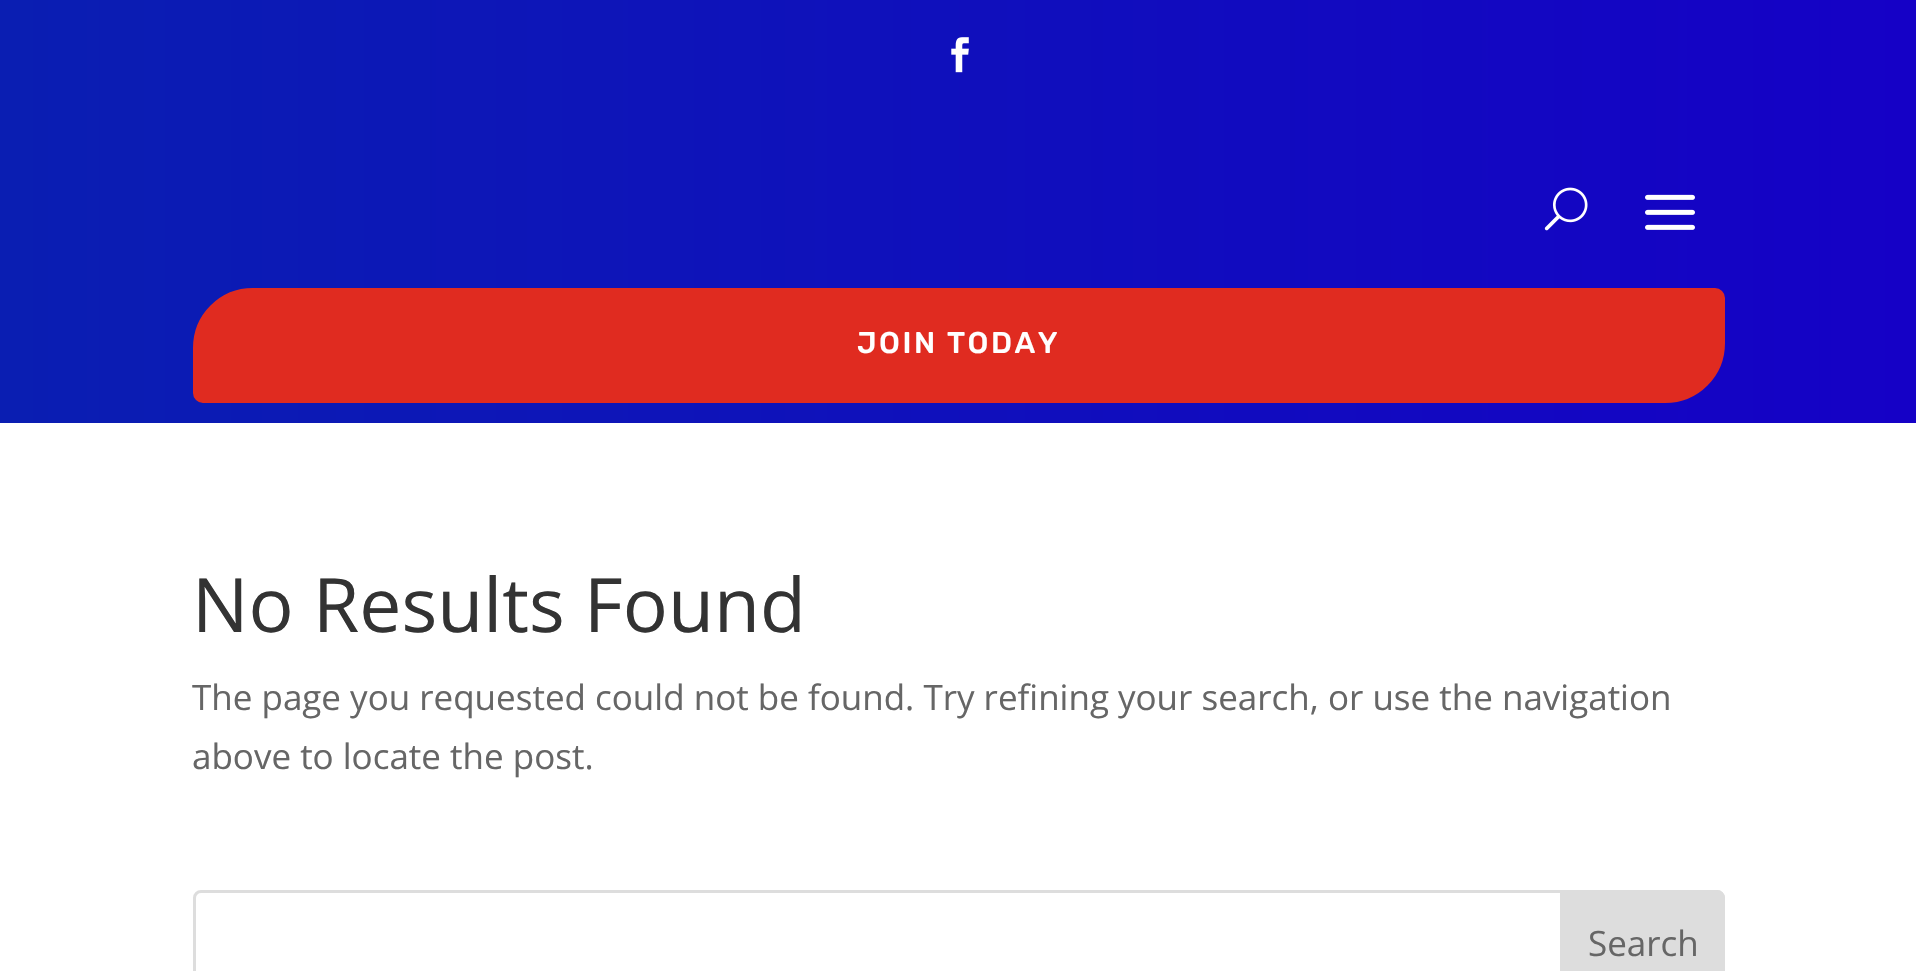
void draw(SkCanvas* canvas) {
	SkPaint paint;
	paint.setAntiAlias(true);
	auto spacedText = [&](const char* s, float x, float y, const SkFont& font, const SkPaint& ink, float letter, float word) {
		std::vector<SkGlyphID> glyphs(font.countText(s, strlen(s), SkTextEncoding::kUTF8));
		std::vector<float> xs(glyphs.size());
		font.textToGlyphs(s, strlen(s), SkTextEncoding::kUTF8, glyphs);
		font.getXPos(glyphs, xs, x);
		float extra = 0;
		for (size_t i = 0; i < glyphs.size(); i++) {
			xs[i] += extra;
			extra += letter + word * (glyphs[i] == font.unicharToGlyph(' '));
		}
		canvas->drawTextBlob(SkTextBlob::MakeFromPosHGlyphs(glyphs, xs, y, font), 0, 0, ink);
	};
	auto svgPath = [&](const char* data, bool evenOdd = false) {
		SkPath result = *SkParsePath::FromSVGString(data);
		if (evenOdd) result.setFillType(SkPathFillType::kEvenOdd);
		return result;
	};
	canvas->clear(0xffffffff);
	{
		const SkColor colors[] = {0xff0a1eb2, 0xff1501c6};
		const float stops[] = {0, 1};
		const SkPoint ends[] = {{0, 55}, {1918, 55}};
		paint.setShader(SkGradientShader::MakeLinear(ends, colors, stops, 2, SkTileMode::kClamp));
		paint.setAlpha(255);
	}
	canvas->drawRect(SkRect::MakeXYWH(0, 0, 1916, 110), paint);
	canvas->drawImageRect(SkImages::DeferredFromEncodedData(SkData::MakeFromFileName("img1.png")), SkRect::MakeXYWH(951, 37, 18, 36), SkSamplingOptions());
	{
		const SkColor colors[] = {0xff0a1eb2, 0xff1501c6};
		const float stops[] = {0, 1};
		const SkPoint ends[] = {{0, 266}, {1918, 266}};
		paint.setShader(SkGradientShader::MakeLinear(ends, colors, stops, 2, SkTileMode::kClamp));
		paint.setAlpha(255);
	}
	canvas->drawRect(SkRect::MakeXYWH(0, 110, 1916, 313), paint);
	canvas->drawImageRect(SkImages::DeferredFromEncodedData(SkData::MakeFromFileName("img2.png")), SkRect::MakeXYWH(1544, 187, 44, 44), SkSamplingOptions());
	canvas->drawImageRect(SkImages::DeferredFromEncodedData(SkData::MakeFromFileName("img3.png")), SkRect::MakeXYWH(1645, 194, 50, 36), SkSamplingOptions());
	paint.setShader(nullptr);
	paint.setColor(0xffe02b20);
	canvas->drawPath(svgPath("M253 290.5H1715C1719 290.5 1722.5 294 1722.5 298V343C1722.5 375 1697 400.5 1665 400.5H203C199 400.5 195.5 397 195.5 393V348C195.5 316 221 290.5 253 290.5Z"), paint);
	paint.setStroke(true);
	paint.setStrokeWidth(5);
	canvas->drawPath(svgPath("M253 290.5H1715C1719 290.5 1722.5 294 1722.5 298V343C1722.5 375 1697 400.5 1665 400.5H203C199 400.5 195.5 397 195.5 393V348C195.5 316 221 290.5 253 290.5Z"), paint);
	SkFont f1(fontMgr->matchFamilyStyle("Rubik", SkFontStyle(500, SkFontStyle::kNormal_Width, SkFontStyle::kUpright_Slant)), 30);
	f1.setSubpixel(true);
	paint.setStroke(false);
	paint.setColor(0xffffffff);
	spacedText("JOIN TODAY", 857, 353, f1, paint, 2.5, 0);
	SkFont f2(fontMgr->matchFamilyStyle("Open Sans", SkFontStyle::Normal()), 75);
	f2.setSubpixel(true);
	paint.setColor(0xff333333);
	canvas->drawString("No Results Found", 192, 632, f2, paint);
	SkFont f3(fontMgr->matchFamilyStyle("Open Sans", SkFontStyle::Normal()), 35);
	f3.setSubpixel(true);
	paint.setColor(0xff666666);
	canvas->drawString("The page you requested could not be found. Try refining your search, or use the navigation", 192, 710, f3, paint);
	canvas->drawString("above to locate the post.", 192, 769, f3, paint);
	paint.setStroke(true);
	paint.setStrokeWidth(3);
	paint.setColor(0xffdddddd);
	canvas->drawRoundRect(SkRect::MakeXYWH(194.5, 891.5, 1529, 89), 6.5, 6.5, paint);
	paint.setStroke(false);
	canvas->drawPath(svgPath("M1561.5 891.5H1717C1720.5 891.5 1723.5 894.5 1723.5 898V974C1723.5 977.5 1720.5 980.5 1717 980.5H1561.5Z"), paint);
	paint.setStroke(true);
	canvas->drawPath(svgPath("M1561.5 891.5H1717C1720.5 891.5 1723.5 894.5 1723.5 898V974C1723.5 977.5 1720.5 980.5 1717 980.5H1561.5Z"), paint);
	paint.setStroke(false);
	paint.setColor(0xff666666);
	canvas->drawString("Search", 1588, 956, f3, paint);
}
